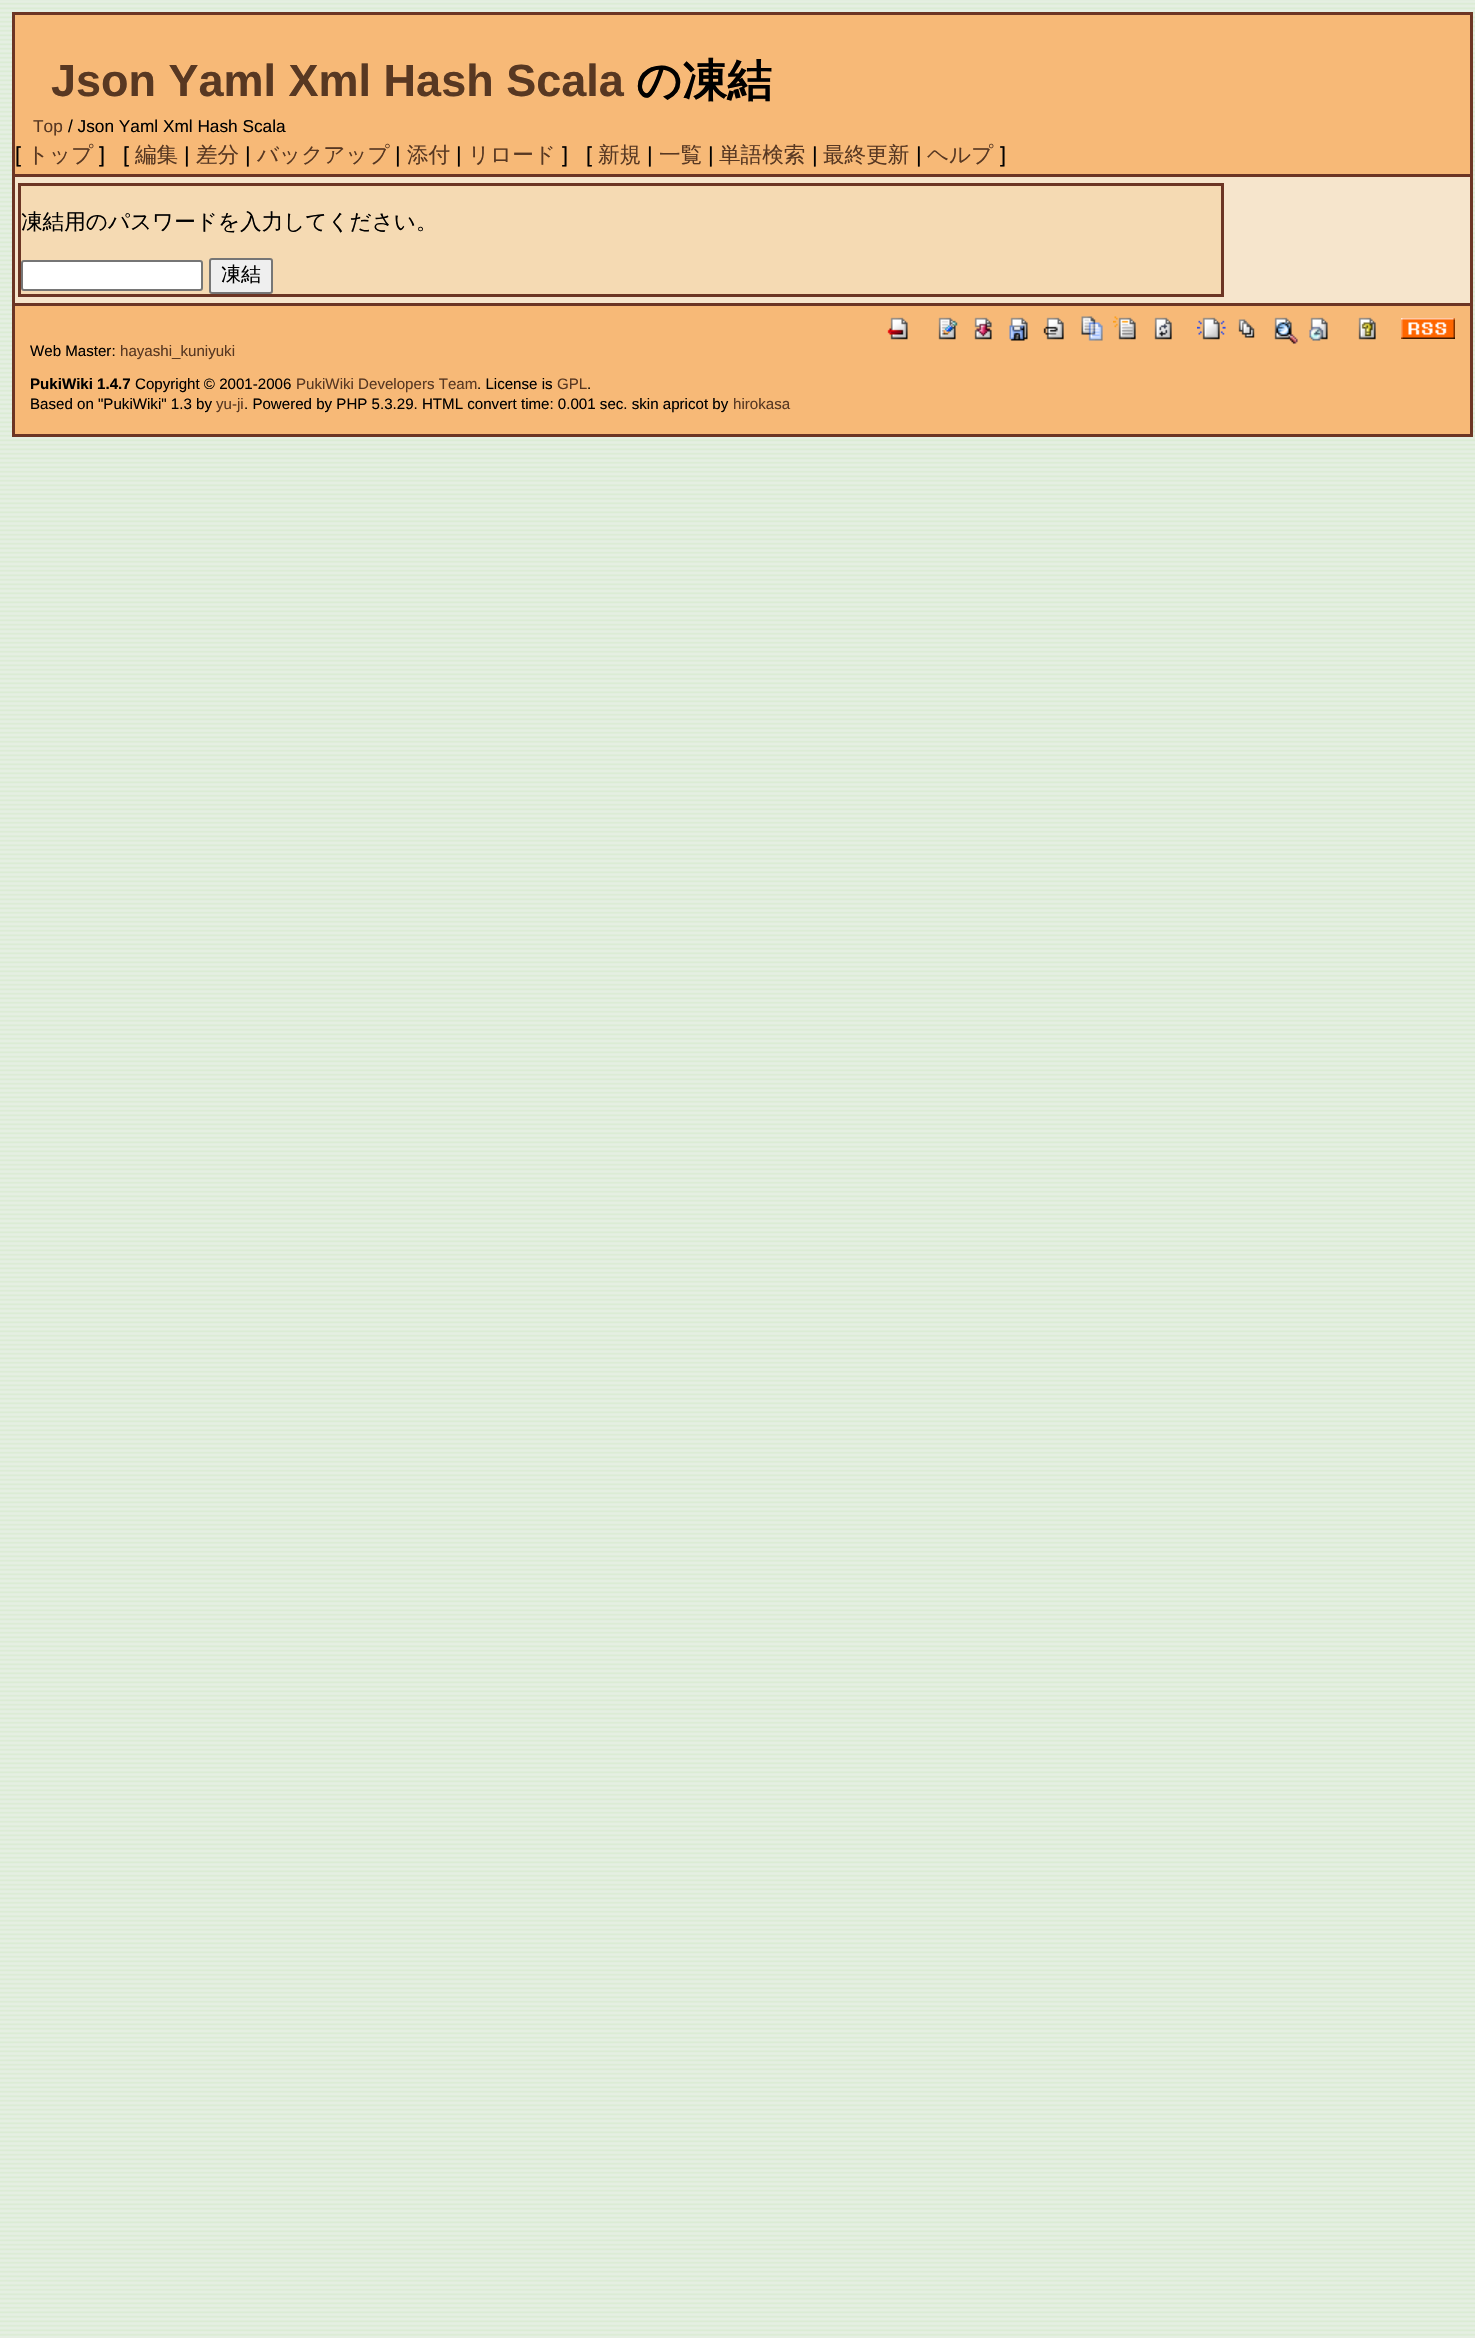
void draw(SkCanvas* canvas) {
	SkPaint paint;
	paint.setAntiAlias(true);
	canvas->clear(0xffffffff);
	canvas->drawImageRect(SkImages::DeferredFromEncodedData(SkData::MakeFromFileName("img1.png")), SkRect::MakeXYWH(0, 0, 1475, 2338), SkSamplingOptions());
	paint.setColor(0xfff6e5cc);
	canvas->drawRect(SkRect::MakeXYWH(15, 177, 1455, 126), paint);
	paint.setStroke(true);
	paint.setStrokeWidth(3);
	paint.setColor(0xff6c3524);
	canvas->drawRect(SkRect::MakeXYWH(13.5, 13.5, 1458, 422), paint);
	paint.setStroke(false);
	paint.setColor(0xfff7b977);
	canvas->drawRect(SkRect::MakeXYWH(15, 15, 1455, 159), paint);
	SkFont f1(fontMgr->matchFamilyStyle("Liberation Sans", SkFontStyle::Bold()), 45);
	f1.setSubpixel(true);
	paint.setColor(0xff583822);
	canvas->drawString("Json Yaml Xml Hash Scala", 51, 96, f1, paint);
	SkFont f2(fontMgr->matchFamilyStyle("WenQuanYi Zen Hei", SkFontStyle::Bold()), 45);
	f2.setSubpixel(true);
	paint.setColor(0xff000000);
	canvas->drawString("の凍結", 636, 96, f2, paint);
	SkFont f3(fontMgr->matchFamilyStyle("Liberation Sans", SkFontStyle::Normal()), 17.25);
	f3.setSubpixel(true);
	paint.setColor(0xff583822);
	canvas->drawString("Top", 33, 132, f3, paint);
	paint.setColor(0xff000000);
	canvas->drawString("/ Json Yaml Xml Hash Scala", 68, 132, f3, paint);
	paint.setColor(0xff6c3524);
	canvas->drawRect(SkRect::MakeXYWH(15, 174, 1455, 3), paint);
	SkFont f4(fontMgr->matchFamilyStyle("Liberation Sans", SkFontStyle::Normal()), 21.6);
	f4.setSubpixel(true);
	paint.setColor(0xff000000);
	canvas->drawString("[", 15, 162, f4, paint);
	SkFont f5(fontMgr->matchFamilyStyle("WenQuanYi Zen Hei", SkFontStyle(500, SkFontStyle::kNormal_Width, SkFontStyle::kUpright_Slant)), 21.6);
	f5.setSubpixel(true);
	paint.setColor(0xff583822);
	canvas->drawString("トップ", 27, 162, f5, paint);
	paint.setColor(0xff000000);
	canvas->drawString("]", 99, 162, f4, paint);
	canvas->drawString("[", 123, 162, f4, paint);
	paint.setColor(0xff583822);
	canvas->drawString("編集", 135, 162, f5, paint);
	paint.setColor(0xff000000);
	canvas->drawString("|", 184, 162, f4, paint);
	paint.setColor(0xff583822);
	canvas->drawString("差分", 196, 162, f5, paint);
	paint.setColor(0xff000000);
	canvas->drawString("|", 245, 162, f4, paint);
	paint.setColor(0xff583822);
	canvas->drawString("バックアップ", 257, 162, f5, paint);
	paint.setColor(0xff000000);
	canvas->drawString("|", 395, 162, f4, paint);
	paint.setColor(0xff583822);
	canvas->drawString("添付", 407, 162, f5, paint);
	paint.setColor(0xff000000);
	canvas->drawString("|", 456, 162, f4, paint);
	paint.setColor(0xff583822);
	canvas->drawString("リロード", 468, 162, f5, paint);
	paint.setColor(0xff000000);
	canvas->drawString("]", 562, 162, f4, paint);
	canvas->drawString("[", 586, 162, f4, paint);
	paint.setColor(0xff583822);
	canvas->drawString("新規", 598, 162, f5, paint);
	paint.setColor(0xff000000);
	canvas->drawString("|", 647, 162, f4, paint);
	paint.setColor(0xff583822);
	canvas->drawString("一覧", 659, 162, f5, paint);
	paint.setColor(0xff000000);
	canvas->drawString("|", 708, 162, f4, paint);
	paint.setColor(0xff583822);
	canvas->drawString("単語検索", 719, 162, f5, paint);
	paint.setColor(0xff000000);
	canvas->drawString("|", 812, 162, f4, paint);
	paint.setColor(0xff583822);
	canvas->drawString("最終更新", 823, 162, f5, paint);
	paint.setColor(0xff000000);
	canvas->drawString("|", 916, 162, f4, paint);
	paint.setColor(0xff583822);
	canvas->drawString("ヘルプ", 927, 162, f5, paint);
	paint.setColor(0xff000000);
	canvas->drawString("]", 1000, 162, f4, paint);
	paint.setColor(0xfff5dab3);
	canvas->drawRect(SkRect::MakeXYWH(19.5, 184.5, 1203, 111), paint);
	paint.setStroke(true);
	paint.setColor(0xff6c3524);
	canvas->drawRect(SkRect::MakeXYWH(19.5, 184.5, 1203, 111), paint);
	paint.setStroke(false);
	paint.setColor(0xff000000);
	canvas->drawString("凍結用のパスワードを入力してください。", 21, 229, f5, paint);
	paint.setColor(0xffffffff);
	canvas->drawRoundRect(SkRect::MakeXYWH(22, 261, 180, 29), 2, 2, paint);
	paint.setStroke(true);
	paint.setStrokeWidth(2);
	paint.setColor(0xff767676);
	canvas->drawRoundRect(SkRect::MakeXYWH(22, 261, 180, 29), 2, 2, paint);
	paint.setStroke(false);
	paint.setColor(0xffefefef);
	canvas->drawRoundRect(SkRect::MakeXYWH(210, 259, 62, 34), 2, 2, paint);
	paint.setStroke(true);
	paint.setColor(0xff767676);
	canvas->drawRoundRect(SkRect::MakeXYWH(210, 259, 62, 34), 2, 2, paint);
	SkFont f6(fontMgr->matchFamilyStyle("WenQuanYi Zen Hei", SkFontStyle(500, SkFontStyle::kNormal_Width, SkFontStyle::kUpright_Slant)), 20);
	f6.setSubpixel(true);
	paint.setStroke(false);
	paint.setColor(0xff000000);
	canvas->drawString("凍結", 221, 281, f6, paint);
	paint.setColor(0xfff7b977);
	canvas->drawRect(SkRect::MakeXYWH(15, 306, 1455, 128), paint);
	paint.setColor(0xff6c3524);
	canvas->drawRect(SkRect::MakeXYWH(15, 303, 1455, 3), paint);
	canvas->drawImageRect(SkImages::DeferredFromEncodedData(SkData::MakeFromFileName("img2.png")), SkRect::MakeXYWH(887, 317, 21, 23), SkSamplingOptions());
	canvas->drawImageRect(SkImages::DeferredFromEncodedData(SkData::MakeFromFileName("img3.png")), SkRect::MakeXYWH(938, 317, 20, 23), SkSamplingOptions());
	canvas->drawImageRect(SkImages::DeferredFromEncodedData(SkData::MakeFromFileName("img4.png")), SkRect::MakeXYWH(974, 317, 18, 23), SkSamplingOptions());
	canvas->drawImageRect(SkImages::DeferredFromEncodedData(SkData::MakeFromFileName("img5.png")), SkRect::MakeXYWH(1009, 317, 19, 24), SkSamplingOptions());
	canvas->drawImageRect(SkImages::DeferredFromEncodedData(SkData::MakeFromFileName("img6.png")), SkRect::MakeXYWH(1043, 317, 21, 23), SkSamplingOptions());
	canvas->drawImageRect(SkImages::DeferredFromEncodedData(SkData::MakeFromFileName("img7.png")), SkRect::MakeXYWH(1081, 316, 22, 25), SkSamplingOptions());
	canvas->drawImageRect(SkImages::DeferredFromEncodedData(SkData::MakeFromFileName("img8.png")), SkRect::MakeXYWH(1113, 316, 23, 24), SkSamplingOptions());
	canvas->drawImageRect(SkImages::DeferredFromEncodedData(SkData::MakeFromFileName("img9.png")), SkRect::MakeXYWH(1154, 317, 18, 23), SkSamplingOptions());
	canvas->drawImageRect(SkImages::DeferredFromEncodedData(SkData::MakeFromFileName("img10.png")), SkRect::MakeXYWH(1197, 317, 29, 23), SkSamplingOptions());
	canvas->drawImageRect(SkImages::DeferredFromEncodedData(SkData::MakeFromFileName("img11.png")), SkRect::MakeXYWH(1238, 319, 17, 19), SkSamplingOptions());
	canvas->drawImageRect(SkImages::DeferredFromEncodedData(SkData::MakeFromFileName("img12.png")), SkRect::MakeXYWH(1274, 317, 24, 27), SkSamplingOptions());
	canvas->drawImageRect(SkImages::DeferredFromEncodedData(SkData::MakeFromFileName("img13.png")), SkRect::MakeXYWH(1309, 317, 19, 24), SkSamplingOptions());
	canvas->drawImageRect(SkImages::DeferredFromEncodedData(SkData::MakeFromFileName("img14.png")), SkRect::MakeXYWH(1358, 317, 18, 23), SkSamplingOptions());
	canvas->drawImageRect(SkImages::DeferredFromEncodedData(SkData::MakeFromFileName("img15.png")), SkRect::MakeXYWH(1401, 318, 54, 21), SkSamplingOptions());
	SkFont f7(fontMgr->matchFamilyStyle("Liberation Sans", SkFontStyle::Normal()), 15.1);
	f7.setSubpixel(true);
	paint.setColor(0xff000000);
	canvas->drawString("Web Master:", 30, 356, f7, paint);
	paint.setColor(0xff583822);
	canvas->drawString("hayashi_kuniyuki", 120, 356, f7, paint);
	SkFont f8(fontMgr->matchFamilyStyle("Liberation Sans", SkFontStyle::Bold()), 15.1);
	f8.setSubpixel(true);
	paint.setColor(0xff000000);
	canvas->drawString("PukiWiki 1.4.7", 30, 389, f8, paint);
	canvas->drawString("Copyright © 2001-2006", 135, 389, f7, paint);
	paint.setColor(0xff583822);
	canvas->drawString("PukiWiki Developers Team", 296, 389, f7, paint);
	paint.setColor(0xff000000);
	canvas->drawString(". License is", 477, 389, f7, paint);
	paint.setColor(0xff583822);
	canvas->drawString("GPL", 557, 389, f7, paint);
	paint.setColor(0xff000000);
	canvas->drawString(".", 587, 389, f7, paint);
	canvas->drawString("Based on \"PukiWiki\" 1.3 by", 30, 409, f7, paint);
	paint.setColor(0xff583822);
	canvas->drawString("yu-ji", 216, 409, f7, paint);
	paint.setColor(0xff000000);
	canvas->drawString(". Powered by PHP 5.3.29. HTML convert time: 0.001 sec. skin apricot by", 244, 409, f7, paint);
	paint.setColor(0xff583822);
	canvas->drawString("hirokasa", 733, 409, f7, paint);
}
